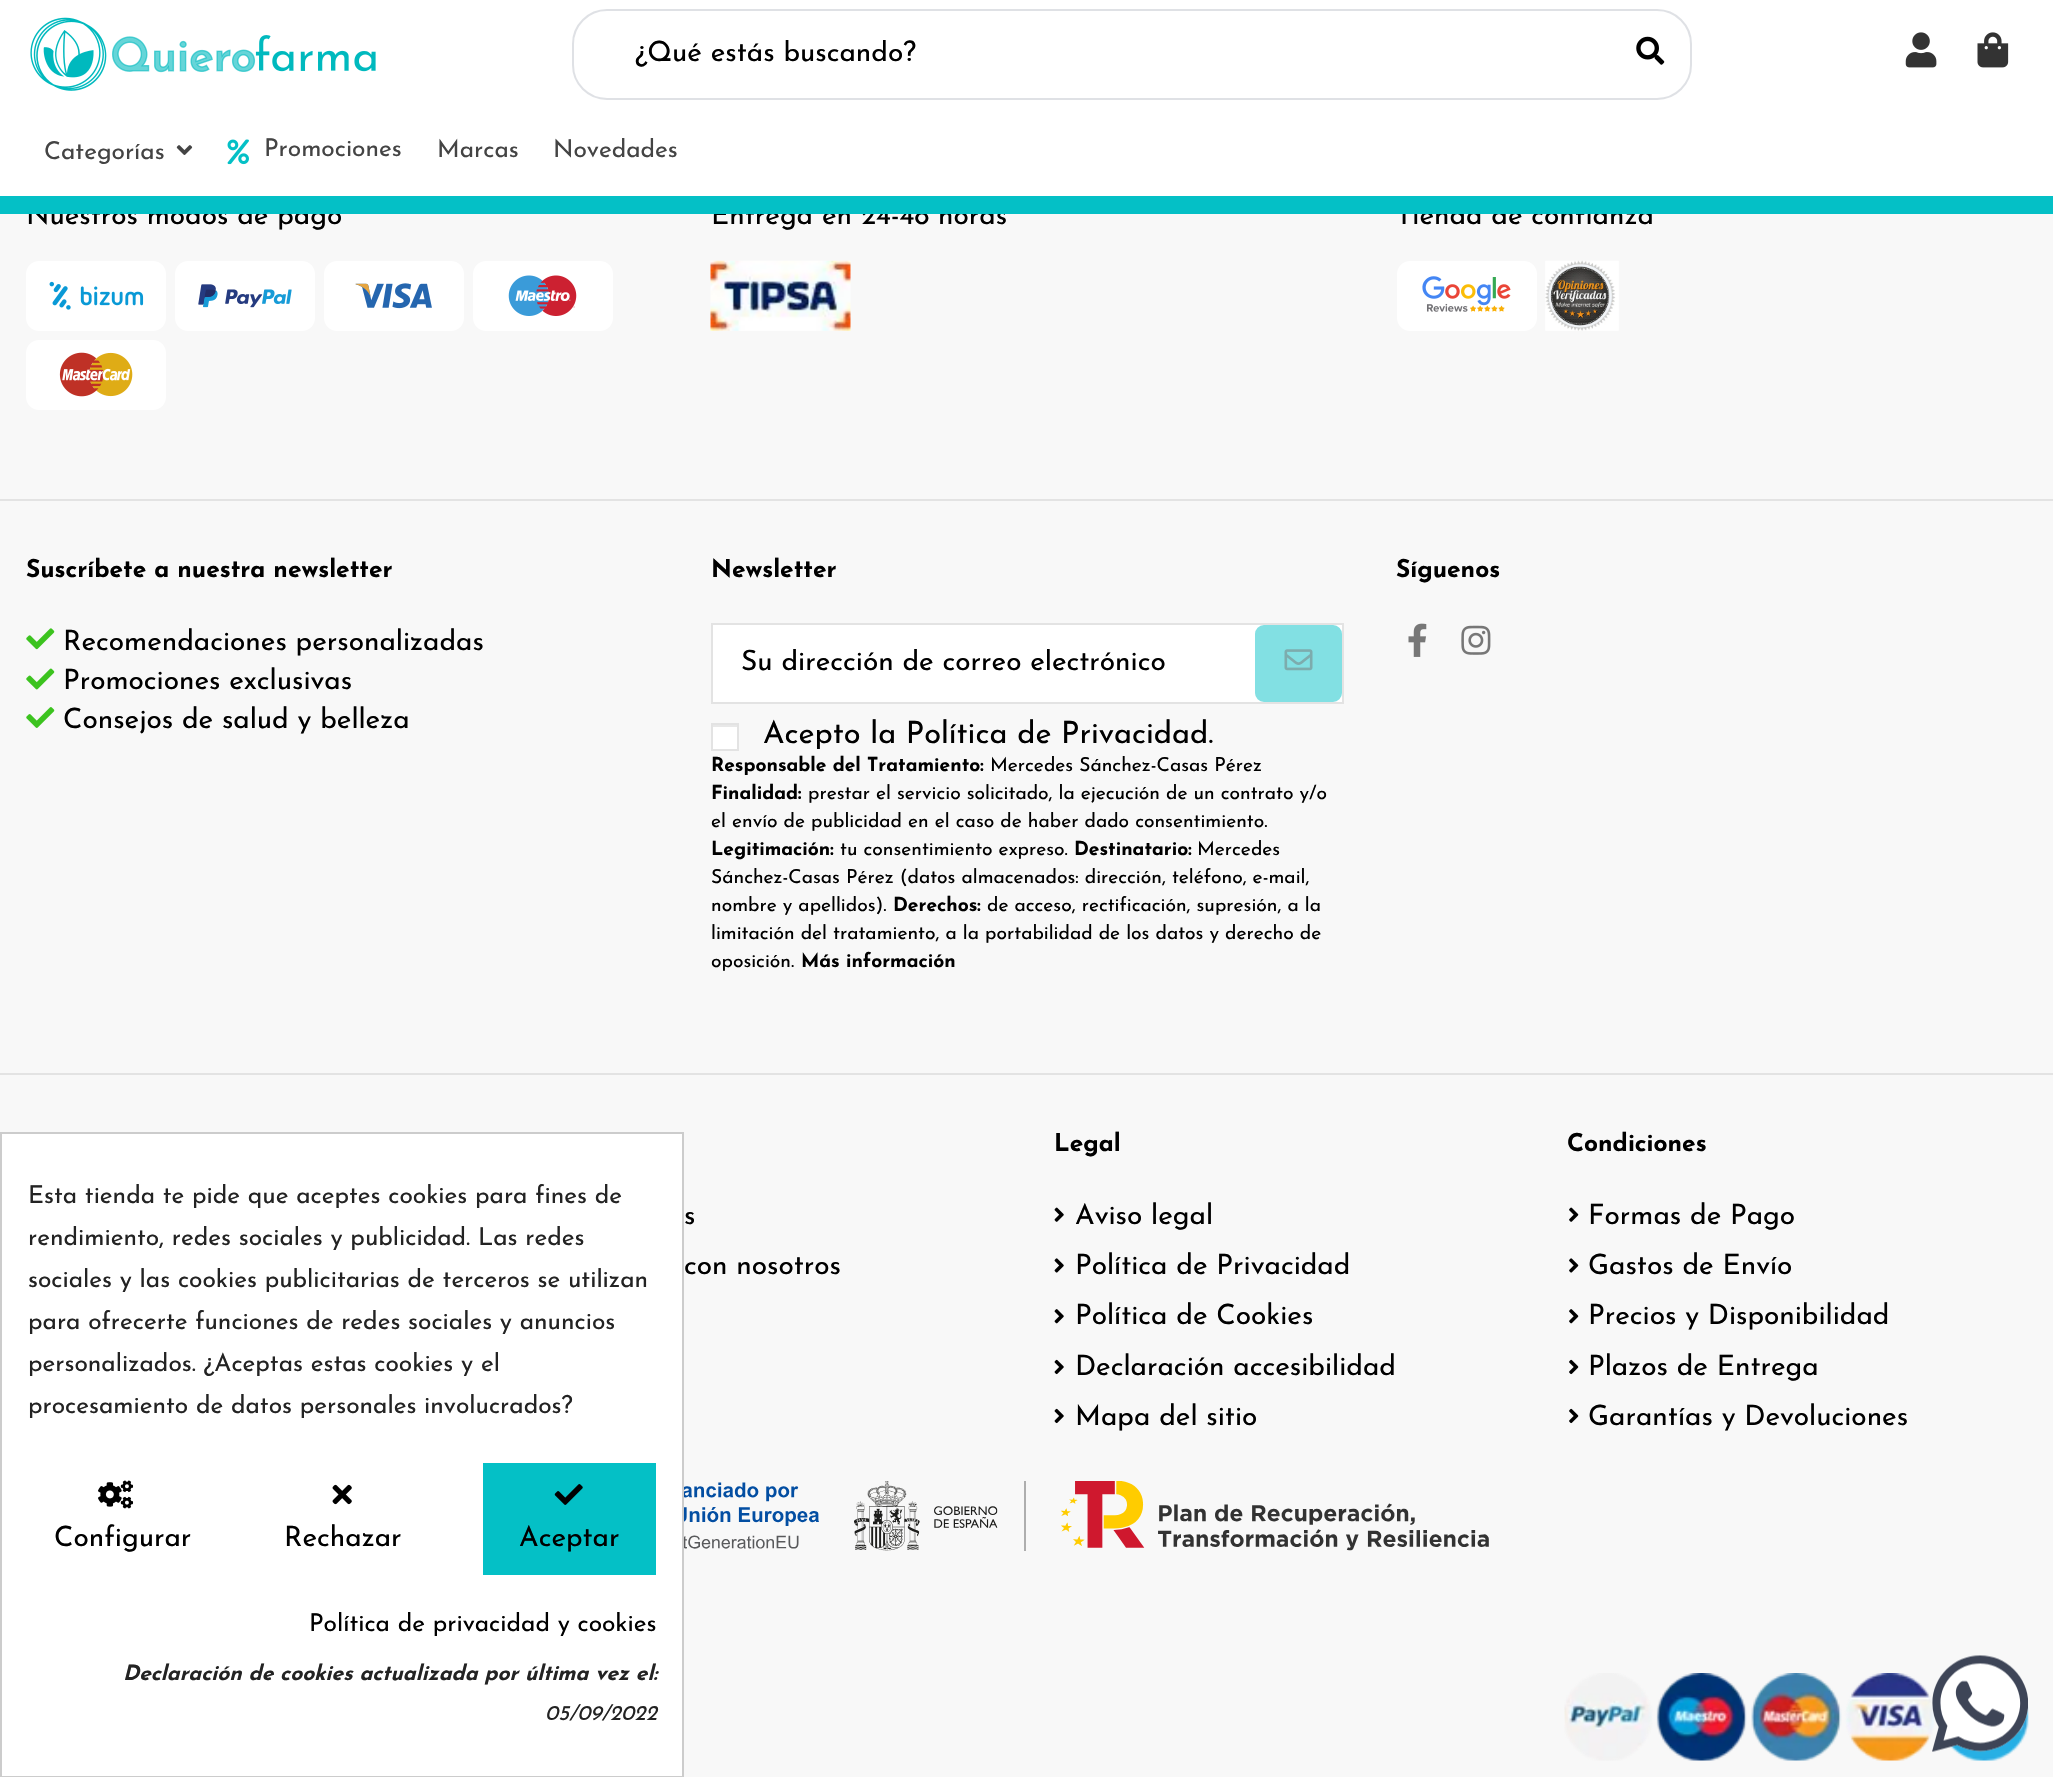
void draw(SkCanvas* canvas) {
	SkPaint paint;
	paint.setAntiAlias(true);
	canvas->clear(0xfff8f8f8);
	paint.setColor(0xffffffff);
	canvas->drawRect(SkRect::MakeXYWH(0, 0, 2053, 196), paint);
	canvas->drawImageRect(SkImages::DeferredFromEncodedData(SkData::MakeFromFileName("img1.png")), SkRect::MakeXYWH(30, 17, 346, 74), SkSamplingOptions());
	paint.setStroke(true);
	paint.setStrokeWidth(2);
	paint.setColor(0xffdfe1e5);
	canvas->drawRoundRect(SkRect::MakeXYWH(573, 10, 1118, 89), 34, 34, paint);
	canvas->save();
	canvas->clipRect(SkRect::MakeXYWH(635, 40, 1000, 28));
	SkFont f1(fontMgr->matchFamilyStyle("Josefin Sans", SkFontStyle(100, SkFontStyle::kNormal_Width, SkFontStyle::kUpright_Slant)), 28);
	f1.setSubpixel(true);
	paint.setStroke(false);
	paint.setColor(0xff000000);
	canvas->drawString("¿Qué estás buscando?", 635, 61, f1, paint);
	canvas->restore();
	canvas->drawImageRect(SkImages::DeferredFromEncodedData(SkData::MakeFromFileName("img2.png")), SkRect::MakeXYWH(1636, 36, 29, 29), SkSamplingOptions());
	canvas->drawImageRect(SkImages::DeferredFromEncodedData(SkData::MakeFromFileName("img3.png")), SkRect::MakeXYWH(1905, 32, 32, 36), SkSamplingOptions());
	canvas->drawImageRect(SkImages::DeferredFromEncodedData(SkData::MakeFromFileName("img4.png")), SkRect::MakeXYWH(1977, 32, 32, 36), SkSamplingOptions());
	SkFont f2(fontMgr->matchFamilyStyle("Josefin Sans", SkFontStyle(100, SkFontStyle::kNormal_Width, SkFontStyle::kUpright_Slant)), 24.5);
	f2.setSubpixel(true);
	paint.setColor(0xff444444);
	canvas->drawString("Categorías", 44, 159, f2, paint);
	canvas->drawImageRect(SkImages::DeferredFromEncodedData(SkData::MakeFromFileName("img5.png")), SkRect::MakeXYWH(176, 145, 17, 10), SkSamplingOptions());
	canvas->drawImageRect(SkImages::DeferredFromEncodedData(SkData::MakeFromFileName("img6.png")), SkRect::MakeXYWH(227, 139, 22, 26), SkSamplingOptions());
	canvas->drawString("Promociones", 264, 156, f2, paint);
	canvas->drawString("Marcas", 437, 157, f2, paint);
	canvas->drawString("Novedades", 553, 157, f2, paint);
	paint.setColor(0xff000000);
	canvas->drawString("Nuestros modos de pago", 26, 224, f1, paint);
	canvas->drawString("Entrega en 24-48 horas", 711, 224, f1, paint);
	canvas->drawString("Tienda de confianza", 1396, 224, f1, paint);
	paint.setColor(0xff04c0c6);
	canvas->drawRect(SkRect::MakeXYWH(0, 196, 2053, 18), paint);
	paint.setColor(0xffe3e3e3);
	canvas->drawRect(SkRect::MakeXYWH(0, 499, 2053, 2), paint);
	canvas->drawImageRect(SkImages::DeferredFromEncodedData(SkData::MakeFromFileName("img7.png")), SkRect::MakeXYWH(26, 261, 140, 70), SkSamplingOptions());
	canvas->drawImageRect(SkImages::DeferredFromEncodedData(SkData::MakeFromFileName("img8.png")), SkRect::MakeXYWH(175, 261, 140, 70), SkSamplingOptions());
	canvas->drawImageRect(SkImages::DeferredFromEncodedData(SkData::MakeFromFileName("img9.png")), SkRect::MakeXYWH(324, 261, 140, 70), SkSamplingOptions());
	canvas->drawImageRect(SkImages::DeferredFromEncodedData(SkData::MakeFromFileName("img10.png")), SkRect::MakeXYWH(473, 261, 140, 70), SkSamplingOptions());
	canvas->drawImageRect(SkImages::DeferredFromEncodedData(SkData::MakeFromFileName("img11.png")), SkRect::MakeXYWH(26, 340, 140, 70), SkSamplingOptions());
	canvas->drawImageRect(SkImages::DeferredFromEncodedData(SkData::MakeFromFileName("img12.png")), SkRect::MakeXYWH(710, 260, 141, 71), SkSamplingOptions());
	canvas->drawImageRect(SkImages::DeferredFromEncodedData(SkData::MakeFromFileName("img13.png")), SkRect::MakeXYWH(1397, 261, 140, 70), SkSamplingOptions());
	canvas->drawImageRect(SkImages::DeferredFromEncodedData(SkData::MakeFromFileName("img14.png")), SkRect::MakeXYWH(1545, 260, 74, 71), SkSamplingOptions());
	canvas->drawRect(SkRect::MakeXYWH(0, 1073, 2053, 2), paint);
	SkFont f3(fontMgr->matchFamilyStyle("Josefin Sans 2", SkFontStyle(100, SkFontStyle::kNormal_Width, SkFontStyle::kUpright_Slant)), 24.5);
	f3.setSubpixel(true);
	paint.setColor(0xff000000);
	canvas->drawString("Suscríbete a nuestra newsletter", 26, 577, f3, paint);
	canvas->drawImageRect(SkImages::DeferredFromEncodedData(SkData::MakeFromFileName("img15.png")), SkRect::MakeXYWH(26, 628, 29, 22), SkSamplingOptions());
	canvas->drawString("Recomendaciones personalizadas", 63, 650, f1, paint);
	canvas->drawImageRect(SkImages::DeferredFromEncodedData(SkData::MakeFromFileName("img16.png")), SkRect::MakeXYWH(26, 668, 29, 22), SkSamplingOptions());
	canvas->drawString("Promociones exclusivas", 63, 689, f1, paint);
	canvas->drawImageRect(SkImages::DeferredFromEncodedData(SkData::MakeFromFileName("img17.png")), SkRect::MakeXYWH(26, 707, 29, 21), SkSamplingOptions());
	canvas->drawString("Consejos de salud y belleza", 63, 728, f1, paint);
	canvas->drawString("Newsletter", 711, 577, f3, paint);
	paint.setColor(0xffffffff);
	canvas->drawRect(SkRect::MakeXYWH(712, 624, 631, 79), paint);
	paint.setStroke(true);
	paint.setColor(0xffe3e3e3);
	canvas->drawRect(SkRect::MakeXYWH(712, 624, 631, 79), paint);
	canvas->save();
	canvas->clipRect(SkRect::MakeXYWH(740, 649, 487, 28));
	paint.setStroke(false);
	paint.setColor(0xff000000);
	canvas->drawString("Su dirección de correo electrónico", 741, 670, f1, paint);
	canvas->restore();
	paint.setColor(0xff82e0e3);
	canvas->drawRoundRect(SkRect::MakeXYWH(1256, 626, 85, 75), 8, 8, paint);
	paint.setStroke(true);
	canvas->drawRoundRect(SkRect::MakeXYWH(1256, 626, 85, 75), 8, 8, paint);
	canvas->drawImageRect(SkImages::DeferredFromEncodedData(SkData::MakeFromFileName("img18.png")), SkRect::MakeXYWH(1284, 649, 29, 22), SkSamplingOptions());
	SkFont f4(fontMgr->matchFamilyStyle("Josefin Sans", SkFontStyle(100, SkFontStyle::kNormal_Width, SkFontStyle::kUpright_Slant)), 30.75);
	f4.setSubpixel(true);
	paint.setStroke(false);
	paint.setColor(0xff000000);
	canvas->drawString("Acepto la Política de Privacidad.", 763, 743, f4, paint);
	SkFont f5(fontMgr->matchFamilyStyle("Josefin Sans 2", SkFontStyle(100, SkFontStyle::kNormal_Width, SkFontStyle::kUpright_Slant)), 19.25);
	f5.setSubpixel(true);
	canvas->drawString("Responsable del Tratamiento:", 711, 771, f5, paint);
	SkFont f6(fontMgr->matchFamilyStyle("Josefin Sans", SkFontStyle(100, SkFontStyle::kNormal_Width, SkFontStyle::kUpright_Slant)), 19.25);
	f6.setSubpixel(true);
	canvas->drawString("Mercedes Sánchez-Casas Pérez", 990, 771, f6, paint);
	canvas->drawString("Finalidad:", 711, 799, f5, paint);
	canvas->drawString("prestar el servicio solicitado, la ejecución de un contrato y/o", 808, 799, f6, paint);
	canvas->drawString("el envío de publicidad en el caso de haber dado consentimiento.", 711, 827, f6, paint);
	canvas->drawString("Legitimación:", 711, 855, f5, paint);
	canvas->drawString("tu consentimiento expreso.", 840, 855, f6, paint);
	canvas->drawString("Destinatario:", 1074, 855, f5, paint);
	canvas->drawString("Mercedes", 1197, 855, f6, paint);
	canvas->drawString("Sánchez-Casas Pérez (datos almacenados: dirección, teléfono, e-mail,", 711, 883, f6, paint);
	canvas->drawString("nombre y apellidos).", 711, 911, f6, paint);
	canvas->drawString("Derechos:", 893, 911, f5, paint);
	canvas->drawString("de acceso, rectificación, supresión, a la", 987, 911, f6, paint);
	canvas->drawString("limitación del tratamiento, a la portabilidad de los datos y derecho de", 711, 939, f6, paint);
	canvas->drawString("oposición.", 711, 967, f6, paint);
	canvas->drawString("Más información", 801, 967, f5, paint);
	paint.setColor(0xffffffff);
	canvas->drawRect(SkRect::MakeXYWH(713, 727, 24, 22), paint);
	paint.setColor(0xffe8e8e8);
	canvas->drawRect(SkRect::MakeXYWH(712, 725, 25, 2), paint);
	paint.setStroke(true);
	paint.setColor(0xffe3e3e3);
	canvas->drawRect(SkRect::MakeXYWH(712, 724, 26, 26), paint);
	paint.setStroke(false);
	paint.setColor(0xff000000);
	canvas->drawString("Síguenos", 1396, 577, f3, paint);
	canvas->drawImageRect(SkImages::DeferredFromEncodedData(SkData::MakeFromFileName("img19.png")), SkRect::MakeXYWH(1408, 623, 19, 34), SkSamplingOptions());
	canvas->drawImageRect(SkImages::DeferredFromEncodedData(SkData::MakeFromFileName("img20.png")), SkRect::MakeXYWH(1461, 625, 30, 30), SkSamplingOptions());
	canvas->drawString("s", 684, 1224, f1, paint);
	canvas->drawString("con nosotros", 684, 1274, f1, paint);
	canvas->drawString("Legal", 1054, 1151, f3, paint);
	canvas->drawImageRect(SkImages::DeferredFromEncodedData(SkData::MakeFromFileName("img21.png")), SkRect::MakeXYWH(1054, 1207, 10, 15), SkSamplingOptions());
	canvas->drawString("Aviso legal", 1075, 1224, f1, paint);
	canvas->drawImageRect(SkImages::DeferredFromEncodedData(SkData::MakeFromFileName("img22.png")), SkRect::MakeXYWH(1054, 1258, 10, 15), SkSamplingOptions());
	canvas->drawString("Política de Privacidad", 1075, 1274, f1, paint);
	canvas->drawImageRect(SkImages::DeferredFromEncodedData(SkData::MakeFromFileName("img23.png")), SkRect::MakeXYWH(1054, 1309, 10, 15), SkSamplingOptions());
	canvas->drawString("Política de Cookies", 1075, 1324, f1, paint);
	canvas->drawImageRect(SkImages::DeferredFromEncodedData(SkData::MakeFromFileName("img24.png")), SkRect::MakeXYWH(1054, 1359, 10, 16), SkSamplingOptions());
	canvas->drawString("Declaración accesibilidad", 1075, 1375, f1, paint);
	canvas->drawImageRect(SkImages::DeferredFromEncodedData(SkData::MakeFromFileName("img24.png")), SkRect::MakeXYWH(1054, 1408, 10, 16), SkSamplingOptions());
	canvas->drawString("Mapa del sitio", 1075, 1425, f1, paint);
	canvas->drawString("Condiciones", 1567, 1151, f3, paint);
	canvas->drawImageRect(SkImages::DeferredFromEncodedData(SkData::MakeFromFileName("img25.png")), SkRect::MakeXYWH(1569, 1207, 10, 15), SkSamplingOptions());
	canvas->drawString("Formas de Pago", 1588, 1224, f1, paint);
	canvas->drawImageRect(SkImages::DeferredFromEncodedData(SkData::MakeFromFileName("img26.png")), SkRect::MakeXYWH(1569, 1258, 10, 15), SkSamplingOptions());
	canvas->drawString("Gastos de Envío", 1588, 1274, f1, paint);
	canvas->drawImageRect(SkImages::DeferredFromEncodedData(SkData::MakeFromFileName("img27.png")), SkRect::MakeXYWH(1569, 1309, 10, 15), SkSamplingOptions());
	canvas->drawString("Precios y Disponibilidad", 1588, 1324, f1, paint);
	canvas->drawImageRect(SkImages::DeferredFromEncodedData(SkData::MakeFromFileName("img28.png")), SkRect::MakeXYWH(1569, 1359, 10, 16), SkSamplingOptions());
	canvas->drawString("Plazos de Entrega", 1588, 1375, f1, paint);
	canvas->drawImageRect(SkImages::DeferredFromEncodedData(SkData::MakeFromFileName("img28.png")), SkRect::MakeXYWH(1569, 1408, 10, 16), SkSamplingOptions());
	canvas->drawString("Garantías y Devoluciones", 1588, 1425, f1, paint);
	canvas->drawImageRect(SkImages::DeferredFromEncodedData(SkData::MakeFromFileName("img29.png")), SkRect::MakeXYWH(684, 1482, 135, 67), SkSamplingOptions());
	canvas->drawImageRect(SkImages::DeferredFromEncodedData(SkData::MakeFromFileName("img30.png")), SkRect::MakeXYWH(854, 1481, 144, 70), SkSamplingOptions());
	paint.setColor(0xffaeaeae);
	canvas->drawRect(SkRect::MakeXYWH(1024, 1481, 2, 70), paint);
	canvas->drawImageRect(SkImages::DeferredFromEncodedData(SkData::MakeFromFileName("img31.png")), SkRect::MakeXYWH(1061, 1481, 428, 70), SkSamplingOptions());
	canvas->drawImageRect(SkImages::DeferredFromEncodedData(SkData::MakeFromFileName("img33.png")), SkRect::MakeXYWH(1564, 1673, 465, 88), SkSamplingOptions());
	canvas->drawImageRect(SkImages::DeferredFromEncodedData(SkData::MakeFromFileName("img32.png")), SkRect::MakeXYWH(1932, 1655, 96, 97), SkSamplingOptions());
	paint.setColor(0xffffffff);
	canvas->drawRect(SkRect::MakeXYWH(1, 1133, 682, 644), paint);
	paint.setStroke(true);
	paint.setColor(0xffcccccc);
	canvas->drawRect(SkRect::MakeXYWH(1, 1133, 682, 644), paint);
	paint.setStroke(false);
	paint.setColor(0xff232323);
	canvas->drawString("Esta tienda te pide que aceptes cookies para fines de", 28, 1203, f2, paint);
	canvas->drawString("rendimiento, redes sociales y publicidad. Las redes", 28, 1245, f2, paint);
	canvas->drawString("sociales y las cookies publicitarias de terceros se utilizan", 28, 1287, f2, paint);
	canvas->drawString("para ofrecerte funciones de redes sociales y anuncios", 28, 1329, f2, paint);
	canvas->drawString("personalizados. ¿Aceptas estas cookies y el", 28, 1371, f2, paint);
	canvas->drawString("procesamiento de datos personales involucrados?", 28, 1413, f2, paint);
	canvas->drawImageRect(SkImages::DeferredFromEncodedData(SkData::MakeFromFileName("img34.png")), SkRect::MakeXYWH(98, 1480, 36, 29), SkSamplingOptions());
	paint.setColor(0xff000000);
	canvas->drawString("Configurar", 54, 1546, f1, paint);
	canvas->drawImageRect(SkImages::DeferredFromEncodedData(SkData::MakeFromFileName("img35.png")), SkRect::MakeXYWH(332, 1484, 20, 21), SkSamplingOptions());
	canvas->drawString("Rechazar", 284, 1546, f1, paint);
	paint.setColor(0xff04c0c6);
	canvas->drawRect(SkRect::MakeXYWH(483, 1463, 173, 112), paint);
	canvas->drawImageRect(SkImages::DeferredFromEncodedData(SkData::MakeFromFileName("img36.png")), SkRect::MakeXYWH(554, 1484, 29, 21), SkSamplingOptions());
	paint.setColor(0xff000000);
	canvas->drawString("Aceptar", 519, 1546, f1, paint);
	canvas->drawString("Política de privacidad y cookies", 309, 1631, f2, paint);
	SkFont f7(fontMgr->matchFamilyStyle("Josefin Sans", SkFontStyle(100, SkFontStyle::kNormal_Width, SkFontStyle::kItalic_Slant)), 21);
	f7.setSubpixel(true);
	paint.setColor(0xff232323);
	canvas->drawString("Declaración de cookies actualizada por última vez el:", 123, 1680, f7, paint);
	SkFont f8(fontMgr->matchFamilyStyle("Josefin Sans 2", SkFontStyle(100, SkFontStyle::kNormal_Width, SkFontStyle::kItalic_Slant)), 21);
	f8.setSubpixel(true);
	canvas->drawString("05/09/2022", 545, 1720, f8, paint);
}
